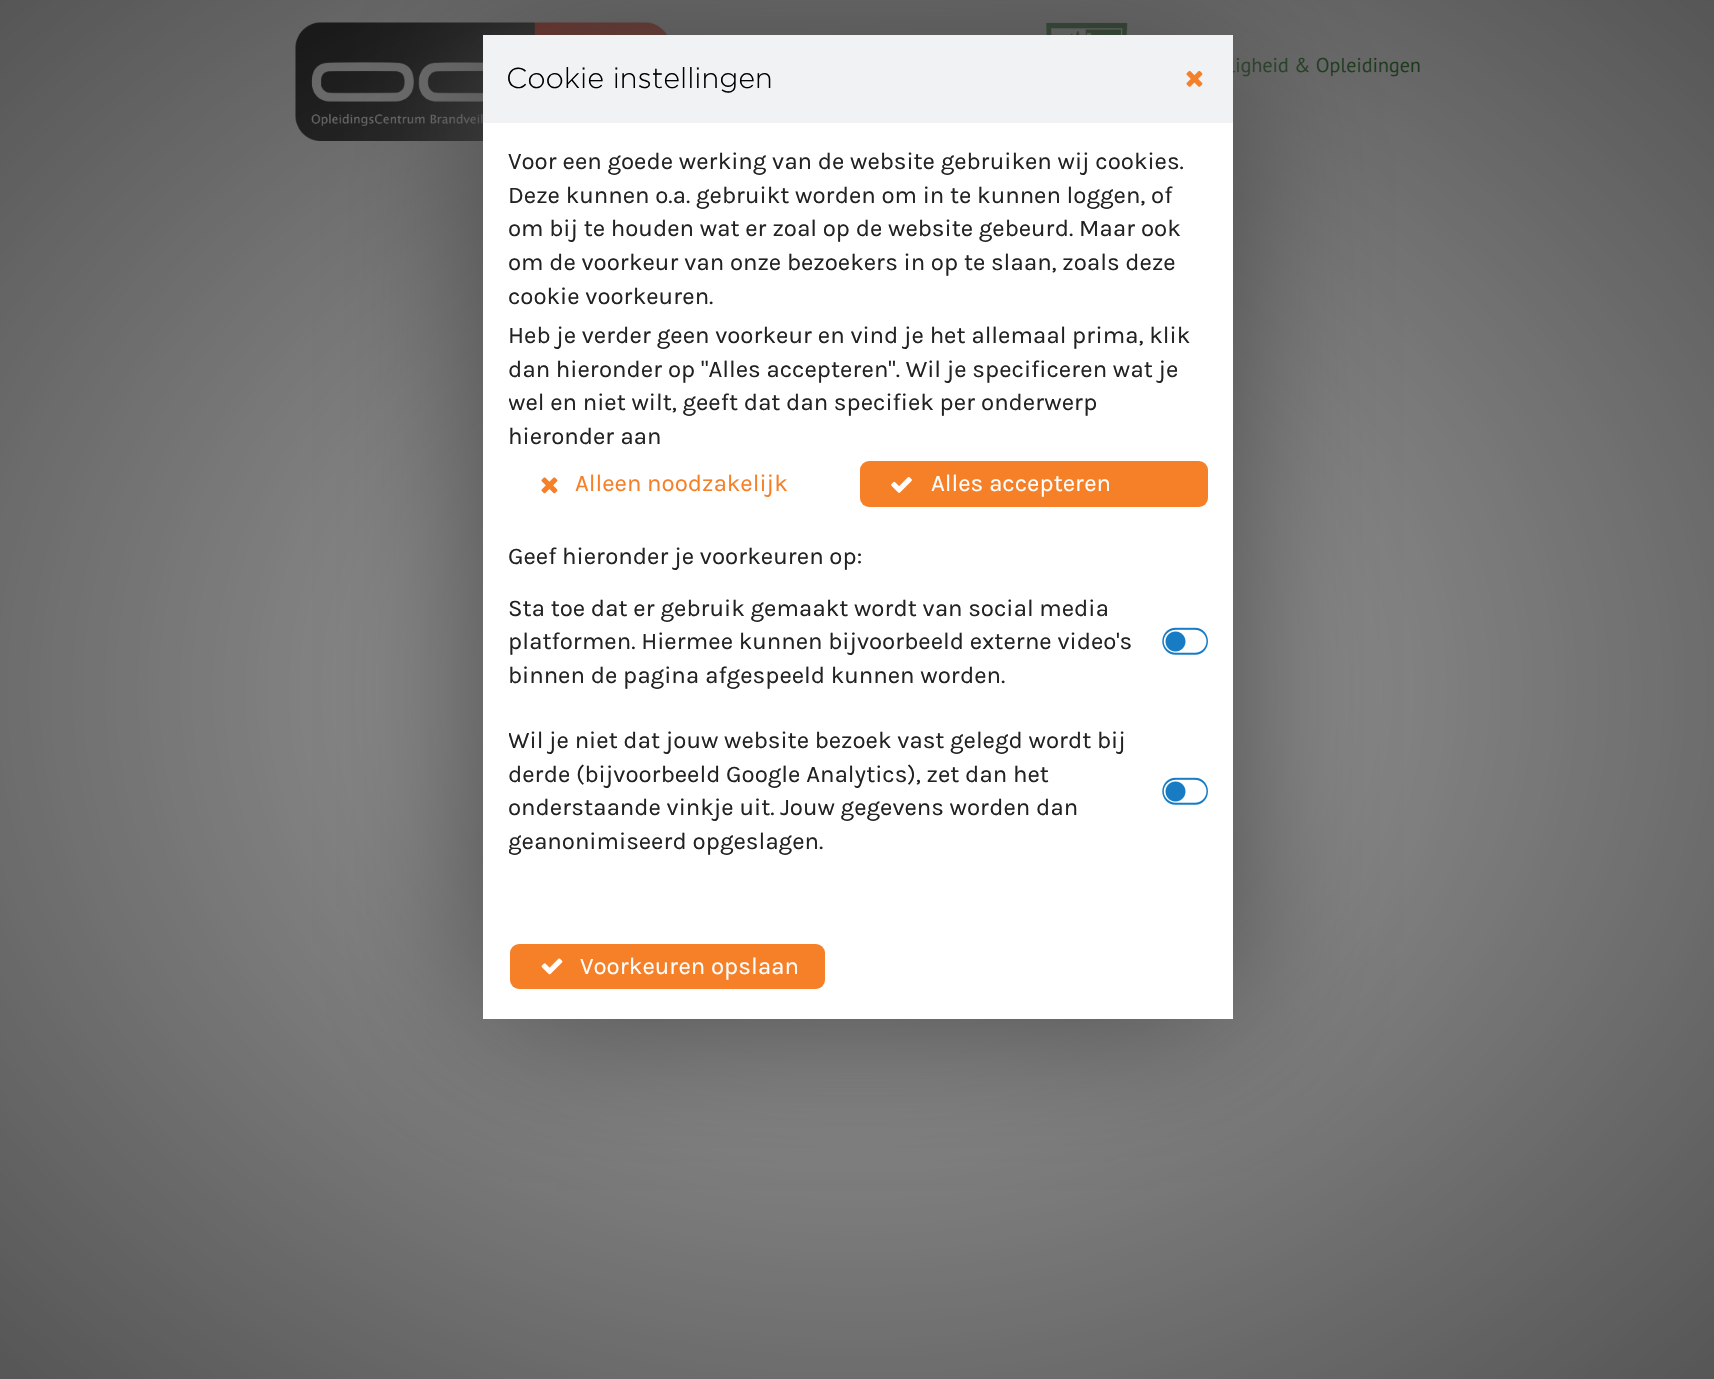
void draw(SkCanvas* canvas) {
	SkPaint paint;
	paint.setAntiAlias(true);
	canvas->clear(0xffffffff);
	canvas->drawImageRect(SkImages::DeferredFromEncodedData(SkData::MakeFromFileName("img1.png")), SkRect::MakeXYWH(295, 22, 373, 119), SkSamplingOptions());
	canvas->drawImageRect(SkImages::DeferredFromEncodedData(SkData::MakeFromFileName("img2.png")), SkRect::MakeXYWH(1046, 22, 374, 55), SkSamplingOptions());
	{
		const SkColor colors[] = {0xb37d7e7d, 0xb30e0e0e};
		const float stops[] = {0, 1};
		SkMatrix m = SkMatrix::Translate(857, 690).preScale(1212, 976);
		paint.setShader(SkGradientShader::MakeRadial({0, 0}, 1, colors, stops, 2, SkTileMode::kClamp, 0, &m));
		paint.setAlpha(255);
	}
	canvas->drawRect(SkRect::MakeXYWH(0, 0, 1714, 1379), paint);
	paint.setShader(nullptr);
	paint.setColor(0xff484848);
	paint.setMaskFilter(SkMaskFilter::MakeBlur(kNormal_SkBlurStyle, 75));
	canvas->drawRect(SkRect::MakeXYWH(483, 35, 750, 984), paint);
	paint.setMaskFilter(nullptr);
	paint.setColor(0xffffffff);
	canvas->drawRect(SkRect::MakeXYWH(483, 123, 750, 896), paint);
	paint.setColor(0xfff0f2f3);
	canvas->drawRect(SkRect::MakeXYWH(483, 35, 750, 88), paint);
	SkFont f1(fontMgr->matchFamilyStyle("Gotham", SkFontStyle(300, SkFontStyle::kNormal_Width, SkFontStyle::kUpright_Slant)), 28.75);
	f1.setSubpixel(true);
	paint.setColor(0xff000000);
	canvas->drawString("Cookie instellingen", 506, 88, f1, paint);
	canvas->drawImageRect(SkImages::DeferredFromEncodedData(SkData::MakeFromFileName("img3.png")), SkRect::MakeXYWH(1186, 70, 17, 17), SkSamplingOptions());
	SkFont f2(fontMgr->matchFamilyStyle("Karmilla", SkFontStyle::Normal()), 24);
	f2.setSubpixel(true);
	paint.setColor(0xff222222);
	canvas->drawString("Voor een goede werking van de website gebruiken wij cookies.", 508, 169, f2, paint);
	canvas->drawString("Deze kunnen o.a. gebruikt worden om in te kunnen loggen, of", 508, 203, f2, paint);
	canvas->drawString("om bij te houden wat er zoal op de website gebeurd. Maar ook", 508, 236, f2, paint);
	canvas->drawString("om de voorkeur van onze bezoekers in op te slaan, zoals deze", 508, 270, f2, paint);
	canvas->drawString("cookie voorkeuren.", 508, 304, f2, paint);
	canvas->drawString("Heb je verder geen voorkeur en vind je het allemaal prima, klik", 508, 343, f2, paint);
	canvas->drawString("dan hieronder op \"Alles accepteren\". Wil je specificeren wat je", 508, 377, f2, paint);
	canvas->save();
	canvas->clipRect(SkRect::MakeXYWH(509, 320, 700, 133));
	canvas->drawString("wel en niet wilt, geeft dat", 508, 410, f2, paint);
	canvas->restore();
	canvas->drawString("dan specifiek per onderwerp", 786, 410, f2, paint);
	canvas->drawString("hieronder aan", 508, 444, f2, paint);
	canvas->drawImageRect(SkImages::DeferredFromEncodedData(SkData::MakeFromFileName("img4.png")), SkRect::MakeXYWH(541, 477, 17, 17), SkSamplingOptions());
	paint.setColor(0xfff58028);
	canvas->drawString("Alleen noodzakelijk", 575, 491, f2, paint);
	canvas->drawRoundRect(SkRect::MakeXYWH(860, 461, 348, 46), 9, 9, paint);
	canvas->drawImageRect(SkImages::DeferredFromEncodedData(SkData::MakeFromFileName("img5.png")), SkRect::MakeXYWH(891, 477, 21, 16), SkSamplingOptions());
	paint.setColor(0xffffffff);
	canvas->drawString("Alles accepteren", 931, 491, f2, paint);
	paint.setColor(0xff222222);
	canvas->drawString("Geef hieronder je voorkeuren op:", 508, 564, f2, paint);
	canvas->drawString("Sta toe dat er gebruik gemaakt wordt van social media", 508, 616, f2, paint);
	canvas->drawString("platformen. Hiermee kunnen bijvoorbeeld externe video's", 508, 649, f2, paint);
	canvas->drawString("binnen de pagina afgespeeld kunnen worden.", 508, 683, f2, paint);
	canvas->drawImageRect(SkImages::DeferredFromEncodedData(SkData::MakeFromFileName("img6.png")), SkRect::MakeXYWH(1162, 627, 46, 28), SkSamplingOptions());
	canvas->save();
	canvas->clipRect(SkRect::MakeXYWH(509, 725, 700, 133));
	canvas->drawString("Wil je niet dat jouw website bezoek vast gelegd wordt bij", 508, 748, f2, paint);
	canvas->restore();
	canvas->drawString("derde (bijvoorbeeld Google Analytics), zet dan het", 508, 782, f2, paint);
	canvas->drawString("onderstaande vinkje uit. Jouw gegevens worden dan", 508, 815, f2, paint);
	canvas->save();
	canvas->clipRect(SkRect::MakeXYWH(509, 725, 700, 133));
	canvas->drawString("geanonimiseerd opgeslagen.", 508, 849, f2, paint);
	canvas->restore();
	canvas->drawImageRect(SkImages::DeferredFromEncodedData(SkData::MakeFromFileName("img6.png")), SkRect::MakeXYWH(1162, 777, 46, 28), SkSamplingOptions());
	paint.setColor(0xfff58028);
	canvas->drawRoundRect(SkRect::MakeXYWH(510, 944, 315, 45), 9, 9, paint);
	canvas->drawImageRect(SkImages::DeferredFromEncodedData(SkData::MakeFromFileName("img7.png")), SkRect::MakeXYWH(541, 958, 22, 17), SkSamplingOptions());
	paint.setColor(0xffffffff);
	canvas->drawString("Voorkeuren opslaan", 580, 974, f2, paint);
}
